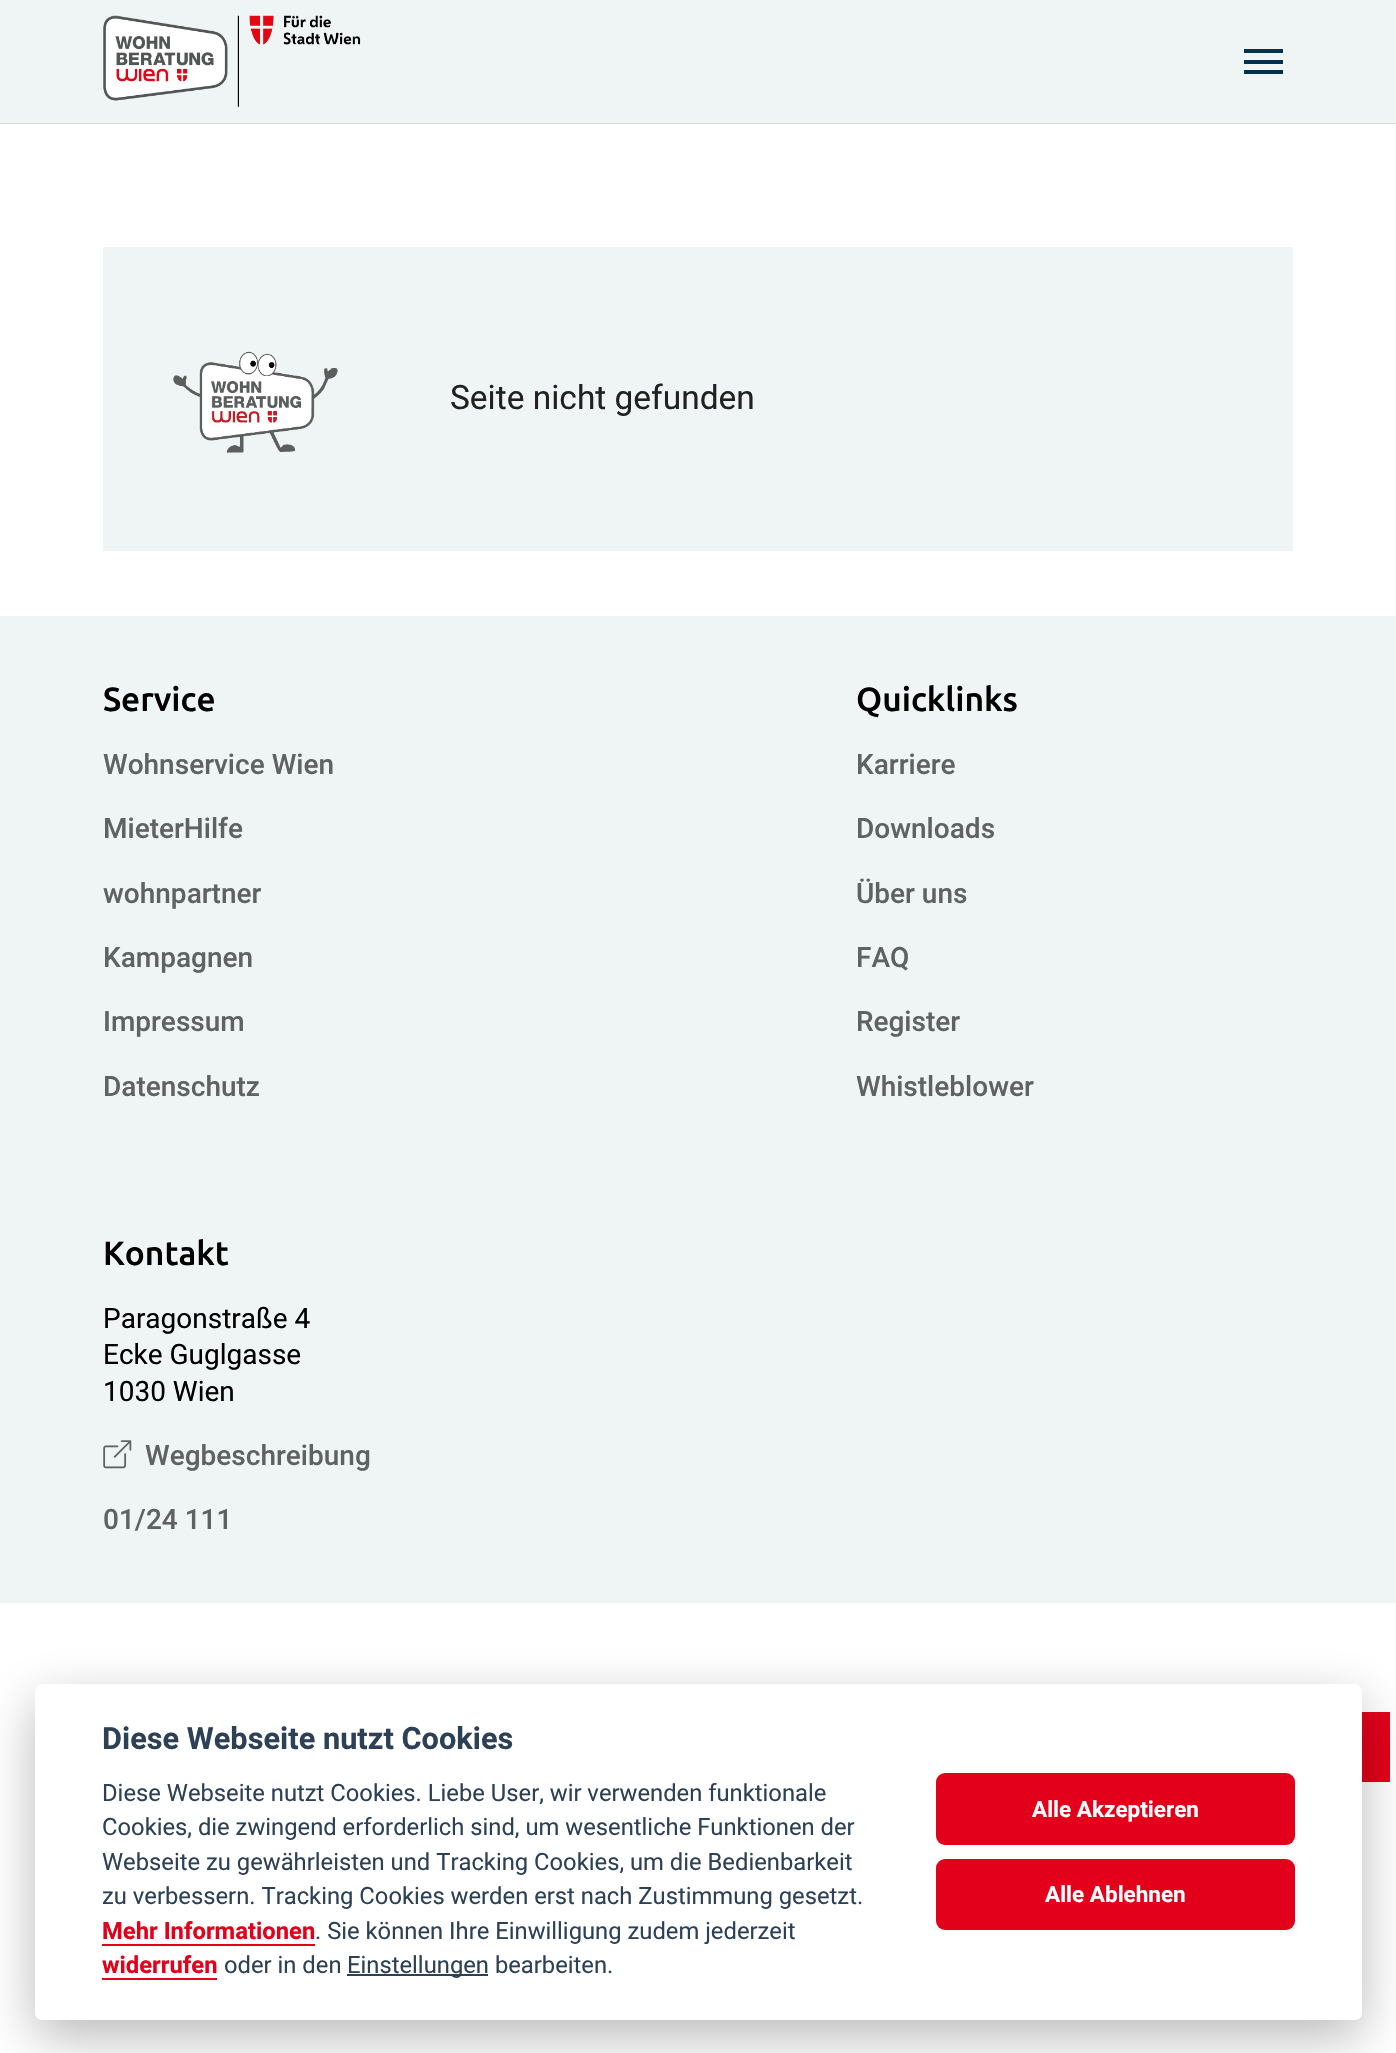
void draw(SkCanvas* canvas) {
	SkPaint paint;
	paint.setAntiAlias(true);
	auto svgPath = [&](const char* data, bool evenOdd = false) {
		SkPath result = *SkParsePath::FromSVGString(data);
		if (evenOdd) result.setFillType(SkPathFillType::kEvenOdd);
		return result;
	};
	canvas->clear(0xffffffff);
	paint.setColor(0xffd9d9d9);
	canvas->drawPath(svgPath("M0 122V124H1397V2H1396V122Z"), paint);
	paint.setColor(0xffeef5f4);
	canvas->drawRect(SkRect::MakeXYWH(0, 0, 1396, 123), paint);
	canvas->drawImageRect(SkImages::DeferredFromEncodedData(SkData::MakeFromFileName("img1.png")), SkRect::MakeXYWH(103, 15, 258, 92), SkSamplingOptions());
	paint.setColor(0xff00324f);
	canvas->drawRect(SkRect::MakeXYWH(1244, 60, 39, 4), paint);
	canvas->drawRect(SkRect::MakeXYWH(1244, 49, 39, 4), paint);
	canvas->drawRect(SkRect::MakeXYWH(1244, 70, 39, 4), paint);
	paint.setColor(0xffeef5f4);
	canvas->drawRect(SkRect::MakeXYWH(103, 247, 1190, 304), paint);
	canvas->drawImageRect(SkImages::DeferredFromEncodedData(SkData::MakeFromFileName("img2.png")), SkRect::MakeXYWH(173, 351, 165, 102), SkSamplingOptions());
	SkFont f1(fontMgr->matchFamilyStyle("Roboto", SkFontStyle::Normal()), 33.5);
	f1.setSubpixel(true);
	paint.setColor(0xff212121);
	canvas->drawString("Seite nicht gefunden", 450, 409, f1, paint);
	paint.setColor(0xffeef5f4);
	canvas->drawRect(SkRect::MakeXYWH(0, 616, 1396, 987), paint);
	SkFont f2(fontMgr->matchFamilyStyle("Ubuntu", SkFontStyle(500, SkFontStyle::kNormal_Width, SkFontStyle::kUpright_Slant)), 33.5);
	f2.setSubpixel(true);
	paint.setColor(0xff000000);
	canvas->drawString("Service", 103, 711, f2, paint);
	SkFont f3(fontMgr->matchFamilyStyle("Roboto", SkFontStyle(500, SkFontStyle::kNormal_Width, SkFontStyle::kUpright_Slant)), 28);
	f3.setSubpixel(true);
	paint.setColor(0xff5f6262);
	canvas->drawString("Wohnservice Wien", 103, 774, f3, paint);
	canvas->drawString("MieterHilfe", 103, 838, f3, paint);
	canvas->drawString("wohnpartner", 103, 903, f3, paint);
	canvas->drawString("Kampagnen", 103, 967, f3, paint);
	canvas->drawString("Impressum", 103, 1031, f3, paint);
	canvas->drawString("Datenschutz", 103, 1096, f3, paint);
	paint.setColor(0xff000000);
	canvas->drawString("Quicklinks", 856, 711, f2, paint);
	paint.setColor(0xff5f6262);
	canvas->drawString("Karriere", 856, 774, f3, paint);
	canvas->drawString("Downloads", 856, 838, f3, paint);
	canvas->drawString("Über uns", 856, 903, f3, paint);
	canvas->drawString("FAQ", 856, 967, f3, paint);
	canvas->drawString("Register", 856, 1031, f3, paint);
	canvas->drawString("Whistleblower", 856, 1096, f3, paint);
	paint.setColor(0xff000000);
	canvas->drawString("Kontakt", 103, 1265, f2, paint);
	SkFont f4(fontMgr->matchFamilyStyle("Roboto", SkFontStyle::Normal()), 28);
	f4.setSubpixel(true);
	canvas->drawString("Paragonstraße 4", 103, 1328, f4, paint);
	canvas->drawString("Ecke Guglgasse", 103, 1364, f4, paint);
	canvas->drawString("1030 Wien", 103, 1401, f4, paint);
	canvas->drawImageRect(SkImages::DeferredFromEncodedData(SkData::MakeFromFileName("img3.png")), SkRect::MakeXYWH(103, 1440, 29, 29), SkSamplingOptions());
	paint.setColor(0xff5f6262);
	canvas->drawString("Wegbeschreibung", 145, 1465, f3, paint);
	canvas->drawString("01/24 111", 103, 1529, f3, paint);
	paint.setColor(0xffe2001a);
	canvas->drawRect(SkRect::MakeXYWH(1362, 1712, 28, 70), paint);
	paint.setColor(0x47020203);
	paint.setMaskFilter(SkMaskFilter::MakeBlur(kNormal_SkBlurStyle, 26));
	canvas->drawRoundRect(SkRect::MakeXYWH(35, 1701, 1327, 336), 7, 7, paint);
	paint.setMaskFilter(nullptr);
	paint.setColor(0xffffffff);
	canvas->drawRoundRect(SkRect::MakeXYWH(35, 1684, 1327, 336), 7, 7, paint);
	SkFont f5(fontMgr->matchFamilyStyle("Roboto", SkFontStyle::Bold()), 30.75);
	f5.setSubpixel(true);
	paint.setColor(0xff2d4156);
	canvas->drawString("Diese Webseite nutzt Cookies", 102, 1749, f5, paint);
	SkFont f6(fontMgr->matchFamilyStyle("Roboto", SkFontStyle::Normal()), 23.8);
	f6.setSubpixel(true);
	canvas->drawString("Diese Webseite nutzt Cookies. Liebe User, wir verwenden funktionale", 102, 1801, f6, paint);
	canvas->drawString("Cookies, die zwingend erforderlich sind, um wesentliche Funktionen der", 102, 1835, f6, paint);
	canvas->drawString("Webseite zu gewährleisten und Tracking Cookies, um die Bedienbarkeit", 102, 1870, f6, paint);
	canvas->drawString("zu verbessern. Tracking Cookies werden erst nach Zustimmung gesetzt.", 102, 1904, f6, paint);
	SkFont f7(fontMgr->matchFamilyStyle("Roboto", SkFontStyle::Bold()), 23.8);
	f7.setSubpixel(true);
	paint.setColor(0xffe2001a);
	canvas->drawString("Mehr Informationen", 102, 1939, f7, paint);
	canvas->drawRect(SkRect::MakeXYWH(102, 1944, 213, 2), paint);
	paint.setColor(0xff2d4156);
	canvas->drawString(". Sie können Ihre Einwilligung zudem jederzeit", 315, 1939, f6, paint);
	paint.setColor(0xffe2001a);
	canvas->drawString("widerrufen", 102, 1973, f7, paint);
	canvas->drawRect(SkRect::MakeXYWH(102, 1978, 115, 2), paint);
	paint.setColor(0xff2d4156);
	canvas->drawString("oder in den", 224, 1973, f6, paint);
	canvas->drawRect(SkRect::MakeXYWH(347, 1974, 141, 2), paint);
	canvas->drawString("Einstellungen bearbeiten.", 347, 1973, f6, paint);
	paint.setColor(0xffe2001a);
	canvas->drawRoundRect(SkRect::MakeXYWH(936, 1773, 359, 72), 9, 9, paint);
	SkFont f8(fontMgr->matchFamilyStyle("Roboto", SkFontStyle::Bold()), 22.5);
	f8.setSubpixel(true);
	paint.setColor(0xffffffff);
	canvas->drawString("Alle Akzeptieren", 1032, 1817, f8, paint);
	paint.setColor(0xffe2001a);
	canvas->drawRoundRect(SkRect::MakeXYWH(936, 1859, 359, 71), 9, 9, paint);
	paint.setColor(0xffffffff);
	canvas->drawString("Alle Ablehnen", 1045, 1902, f8, paint);
}
